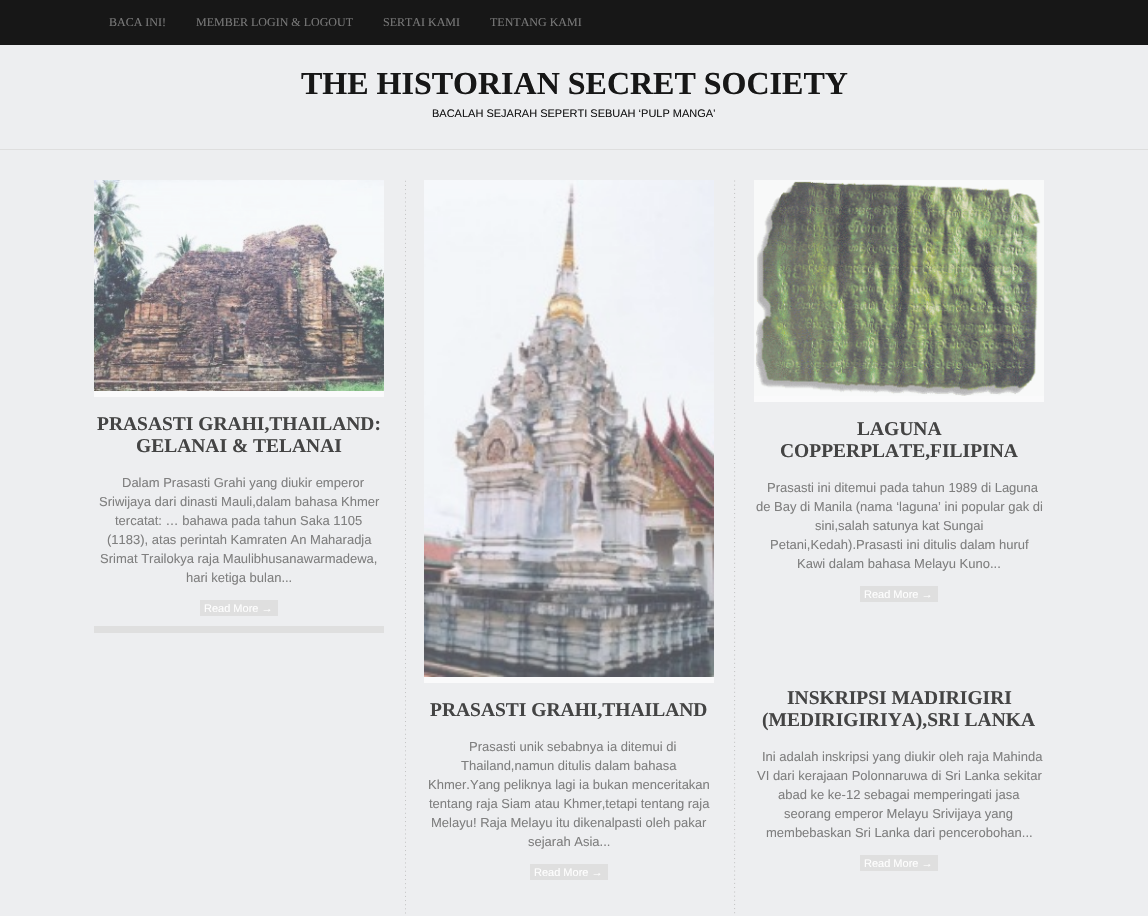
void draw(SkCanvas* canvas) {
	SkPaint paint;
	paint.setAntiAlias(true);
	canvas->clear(0xffedeef0);
	paint.setColor(0xff171717);
	canvas->drawRect(SkRect::MakeXYWH(0, 0, 1148, 45), paint);
	SkFont f1(fontMgr->matchFamilyStyle("Liberation Serif", SkFontStyle::Normal()), 12);
	f1.setSubpixel(true);
	paint.setColor(0xff777777);
	canvas->drawString("BACA INI!", 109, 26, f1, paint);
	canvas->drawString("MEMBER LOGIN & LOGOUT", 196, 26, f1, paint);
	canvas->drawString("SERTAI KAMI", 383, 26, f1, paint);
	canvas->drawString("TENTANG KAMI", 490, 26, f1, paint);
	paint.setColor(0xffdedede);
	canvas->drawRect(SkRect::MakeXYWH(0, 149, 1148, 1), paint);
	SkFont f2(fontMgr->matchFamilyStyle("Liberation Serif", SkFontStyle::Bold()), 32);
	f2.setSubpixel(true);
	paint.setColor(0xff171717);
	canvas->drawString("THE HISTORIAN SECRET SOCIETY", 301, 94, f2, paint);
	SkFont f3(fontMgr->matchFamilyStyle("Liberation Sans", SkFontStyle::Normal()), 11);
	f3.setSubpixel(true);
	canvas->drawString("BACALAH SEJARAH SEPERTI SEBUAH ‘PULP MANGA'", 432, 117, f3, paint);
	canvas->drawImageRect(SkImages::DeferredFromEncodedData(SkData::MakeFromFileName("img1.png")), SkRect::MakeXYWH(405, 180, 331, 734), SkSamplingOptions());
	paint.setColor(0xffdfdfdf);
	canvas->drawRect(SkRect::MakeXYWH(94, 626, 290, 7), paint);
	canvas->drawImageRect(SkImages::DeferredFromEncodedData(SkData::MakeFromFileName("img2.png")), SkRect::MakeXYWH(94, 180, 290, 211), SkSamplingOptions());
	paint.setColor(0xfffafafb);
	canvas->drawRect(SkRect::MakeXYWH(94, 391, 290, 6), paint);
	SkFont f4(fontMgr->matchFamilyStyle("Liberation Serif", SkFontStyle::Bold()), 19.5);
	f4.setSubpixel(true);
	paint.setColor(0xff444444);
	canvas->drawString("PRASASTI GRAHI,THAILAND:", 97, 430, f4, paint);
	canvas->drawString("GELANAI & TELANAI", 136, 452, f4, paint);
	SkFont f5(fontMgr->matchFamilyStyle("Liberation Sans", SkFontStyle::Normal()), 13);
	f5.setSubpixel(true);
	paint.setColor(0xff7f7f7f);
	canvas->drawString("Dalam Prasasti Grahi yang diukir emperor", 122, 487, f5, paint);
	canvas->drawString("Sriwijaya dari dinasti Mauli,dalam bahasa Khmer", 99, 506, f5, paint);
	canvas->drawString("tercatat: … bahawa pada tahun Saka 1105", 115, 525, f5, paint);
	canvas->drawString("(1183), atas perintah Kamraten An Maharadja", 107, 544, f5, paint);
	canvas->drawString("Srimat Trailokya raja Maulibhusanawarmadewa,", 100, 563, f5, paint);
	canvas->drawString("hari ketiga bulan...", 186, 582, f5, paint);
	paint.setColor(0xffdfdfdf);
	canvas->drawRect(SkRect::MakeXYWH(200, 600, 78, 16), paint);
	paint.setColor(0xffffffff);
	canvas->drawString("Read More →", 204, 612, f3, paint);
	canvas->drawImageRect(SkImages::DeferredFromEncodedData(SkData::MakeFromFileName("img3.png")), SkRect::MakeXYWH(754, 180, 290, 216), SkSamplingOptions());
	paint.setColor(0xfffafafb);
	canvas->drawRect(SkRect::MakeXYWH(754, 396, 290, 6), paint);
	paint.setColor(0xff444444);
	canvas->drawString("LAGUNA", 857, 435, f4, paint);
	canvas->drawString("COPPERPLATE,FILIPINA", 780, 457, f4, paint);
	paint.setColor(0xff7f7f7f);
	canvas->drawString("Prasasti ini ditemui pada tahun 1989 di Laguna", 767, 492, f5, paint);
	canvas->drawString("de Bay di Manila (nama ‘laguna’ ini popular gak di", 756, 511, f5, paint);
	canvas->drawString("sini,salah satunya kat Sungai", 815, 530, f5, paint);
	canvas->drawString("Petani,Kedah).Prasasti ini ditulis dalam huruf", 770, 549, f5, paint);
	canvas->drawString("Kawi dalam bahasa Melayu Kuno...", 797, 568, f5, paint);
	paint.setColor(0xffdfdfdf);
	canvas->drawRect(SkRect::MakeXYWH(860, 586, 78, 16), paint);
	paint.setColor(0xffffffff);
	canvas->drawString("Read More →", 864, 598, f3, paint);
	canvas->drawImageRect(SkImages::DeferredFromEncodedData(SkData::MakeFromFileName("img4.png")), SkRect::MakeXYWH(424, 180, 290, 497), SkSamplingOptions());
	paint.setColor(0xfffafafb);
	canvas->drawRect(SkRect::MakeXYWH(424, 677, 290, 6), paint);
	paint.setColor(0xff444444);
	canvas->drawString("PRASASTI GRAHI,THAILAND", 430, 716, f4, paint);
	paint.setColor(0xff7f7f7f);
	canvas->drawString("Prasasti unik sebabnya ia ditemui di", 469, 751, f5, paint);
	canvas->drawString("Thailand,namun ditulis dalam bahasa", 461, 770, f5, paint);
	canvas->drawString("Khmer.Yang peliknya lagi ia bukan menceritakan", 428, 789, f5, paint);
	canvas->drawString("tentang raja Siam atau Khmer,tetapi tentang raja", 429, 808, f5, paint);
	canvas->drawString("Melayu! Raja Melayu itu dikenalpasti oleh pakar", 431, 827, f5, paint);
	canvas->drawString("sejarah Asia...", 528, 846, f5, paint);
	paint.setColor(0xffdfdfdf);
	canvas->drawRect(SkRect::MakeXYWH(530, 864, 78, 16), paint);
	paint.setColor(0xffffffff);
	canvas->drawString("Read More →", 534, 876, f3, paint);
	paint.setColor(0xff444444);
	canvas->drawString("INSKRIPSI MADIRIGIRI", 787, 704, f4, paint);
	canvas->drawString("(MEDIRIGIRIYA),SRI LANKA", 762, 726, f4, paint);
	paint.setColor(0xff7f7f7f);
	canvas->drawString("Ini adalah inskripsi yang diukir oleh raja Mahinda", 762, 761, f5, paint);
	canvas->drawString("VI dari kerajaan Polonnaruwa di Sri Lanka sekitar", 757, 780, f5, paint);
	canvas->drawString("abad ke ke-12 sebagai memperingati jasa", 778, 799, f5, paint);
	canvas->drawString("seorang emperor Melayu Srivijaya yang", 784, 818, f5, paint);
	canvas->drawString("membebaskan Sri Lanka dari pencerobohan...", 766, 837, f5, paint);
	paint.setColor(0xffdfdfdf);
	canvas->drawRect(SkRect::MakeXYWH(860, 855, 78, 16), paint);
	paint.setColor(0xffffffff);
	canvas->drawString("Read More →", 864, 867, f3, paint);
}
